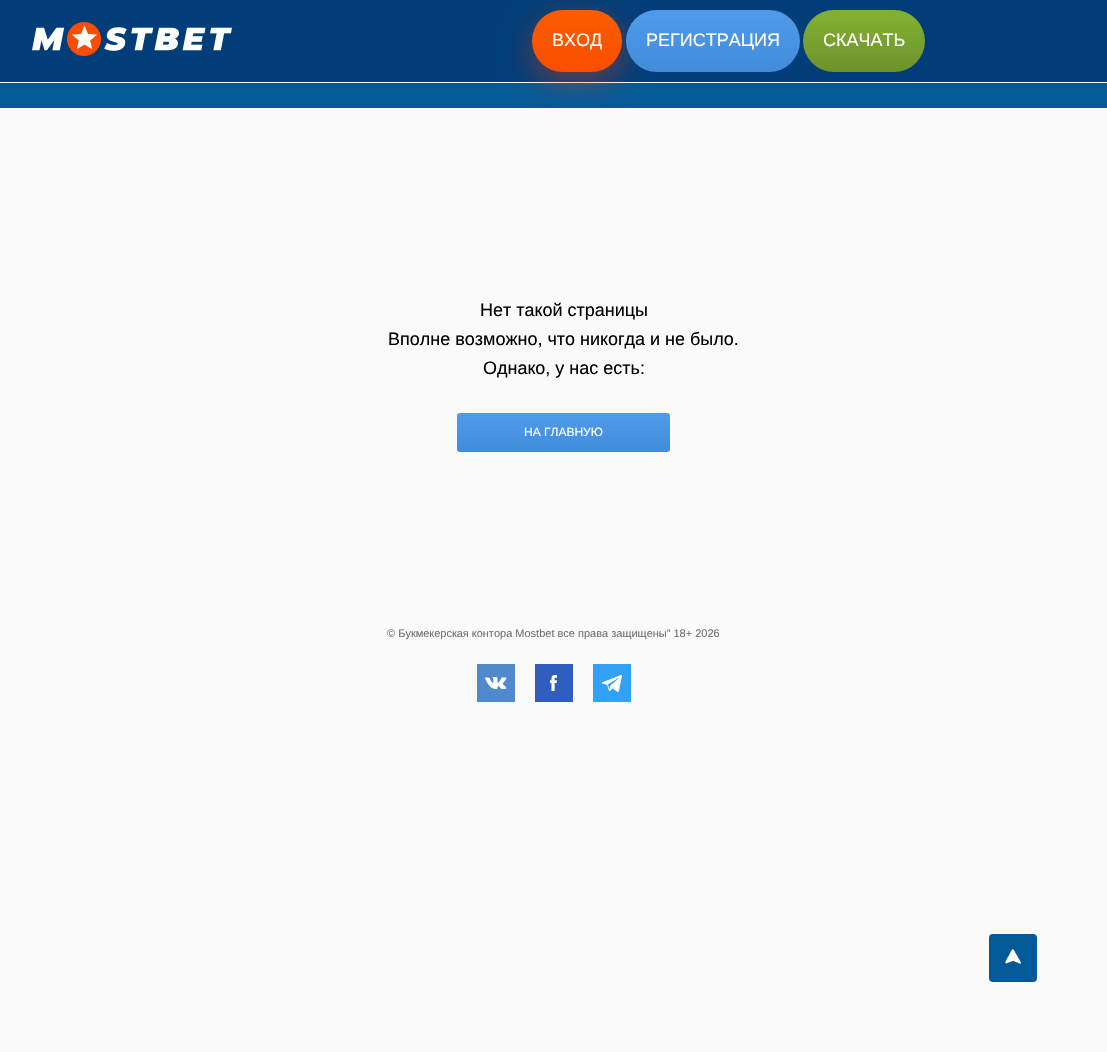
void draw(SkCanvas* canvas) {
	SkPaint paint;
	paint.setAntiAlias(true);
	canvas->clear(0xfffafafb);
	paint.setColor(0xff013d79);
	canvas->drawRect(SkRect::MakeXYWH(0, 0, 1107, 82), paint);
	canvas->drawImageRect(SkImages::DeferredFromEncodedData(SkData::MakeFromFileName("img1.png")), SkRect::MakeXYWH(32, 22, 200, 34), SkSamplingOptions());
	paint.setColor(0xff045998);
	canvas->drawRect(SkRect::MakeXYWH(0, 83, 1107, 25), paint);
	paint.setColor(0xffffffff);
	canvas->drawRect(SkRect::MakeXYWH(0, 82, 1107, 1), paint);
	paint.setColor(0x66fa4100);
	paint.setMaskFilter(SkMaskFilter::MakeBlur(kNormal_SkBlurStyle, 15));
	canvas->drawRoundRect(SkRect::MakeXYWH(532, 20, 90, 62), 31, 31, paint);
	paint.setMaskFilter(nullptr);
	{
		const SkColor colors[] = {0xfffa4d00, 0xfffa5e00};
		const float stops[] = {0, 1};
		const SkPoint ends[] = {{577, 72}, {577, 10}};
		paint.setShader(SkGradientShader::MakeLinear(ends, colors, stops, 2, SkTileMode::kClamp));
		paint.setAlpha(255);
	}
	canvas->drawRoundRect(SkRect::MakeXYWH(532, 10, 90, 62), 31, 31, paint);
	SkFont f1(fontMgr->matchFamilyStyle("Liberation Sans", SkFontStyle::Normal()), 18);
	f1.setSubpixel(true);
	paint.setShader(nullptr);
	paint.setColor(0xffffffff);
	canvas->drawString("ВХОД", 552, 46, f1, paint);
	{
		const SkColor colors[] = {0xff428cdc, 0xff509aea, 0xff509aea};
		const float stops[] = {0, 0.97, 1};
		const SkPoint ends[] = {{713, 72}, {713, 10}};
		paint.setShader(SkGradientShader::MakeLinear(ends, colors, stops, 3, SkTileMode::kClamp));
		paint.setAlpha(255);
	}
	canvas->drawRoundRect(SkRect::MakeXYWH(626, 10, 174, 62), 31, 31, paint);
	paint.setShader(nullptr);
	paint.setColor(0xffffffff);
	canvas->drawString("РЕГИСТРАЦИЯ", 646, 46, f1, paint);
	{
		const SkColor colors[] = {0xff83b232, 0xff6d922b};
		const float stops[] = {0, 1};
		const SkPoint ends[] = {{864, 10}, {864, 72}};
		paint.setShader(SkGradientShader::MakeLinear(ends, colors, stops, 2, SkTileMode::kClamp));
		paint.setAlpha(255);
	}
	canvas->drawRoundRect(SkRect::MakeXYWH(803, 10, 122, 62), 31, 31, paint);
	paint.setShader(nullptr);
	paint.setColor(0xffffffff);
	canvas->drawString("СКАЧАТЬ", 823, 46, f1, paint);
	paint.setColor(0xff000000);
	canvas->drawString("Нет такой страницы", 480, 316, f1, paint);
	canvas->drawString("Вполне возможно, что никогда и не было.", 388, 345, f1, paint);
	canvas->drawString("Однако, у нас есть:", 483, 374, f1, paint);
	{
		const SkColor colors[] = {0xff428cdc, 0xff509aea, 0xff509aea};
		const float stops[] = {0, 0.97, 1};
		const SkPoint ends[] = {{564, 452}, {564, 413}};
		paint.setShader(SkGradientShader::MakeLinear(ends, colors, stops, 3, SkTileMode::kClamp));
		paint.setAlpha(255);
	}
	canvas->drawRoundRect(SkRect::MakeXYWH(457, 413, 213, 39), 3, 3, paint);
	SkFont f2(fontMgr->matchFamilyStyle("Liberation Sans", SkFontStyle::Normal()), 12);
	f2.setSubpixel(true);
	paint.setShader(nullptr);
	paint.setColor(0xffffffff);
	canvas->drawString("НА ГЛАВНУЮ", 524, 436, f2, paint);
	SkFont f3(fontMgr->matchFamilyStyle("Liberation Sans", SkFontStyle::Normal()), 11);
	f3.setSubpixel(true);
	paint.setColor(0xff707070);
	canvas->drawString("© Букмекерская контора Mostbet все права защищены” 18+ 2026", 387, 637, f3, paint);
	canvas->drawImageRect(SkImages::DeferredFromEncodedData(SkData::MakeFromFileName("img2.png")), SkRect::MakeXYWH(477, 664, 38, 38), SkSamplingOptions());
	canvas->drawImageRect(SkImages::DeferredFromEncodedData(SkData::MakeFromFileName("img3.png")), SkRect::MakeXYWH(535, 664, 38, 38), SkSamplingOptions());
	canvas->drawImageRect(SkImages::DeferredFromEncodedData(SkData::MakeFromFileName("img4.png")), SkRect::MakeXYWH(593, 664, 38, 38), SkSamplingOptions());
	paint.setColor(0xff045998);
	canvas->drawRoundRect(SkRect::MakeXYWH(989, 934, 48, 48), 4, 4, paint);
	canvas->drawImageRect(SkImages::DeferredFromEncodedData(SkData::MakeFromFileName("img5.png")), SkRect::MakeXYWH(1005, 949, 16, 15), SkSamplingOptions());
}
